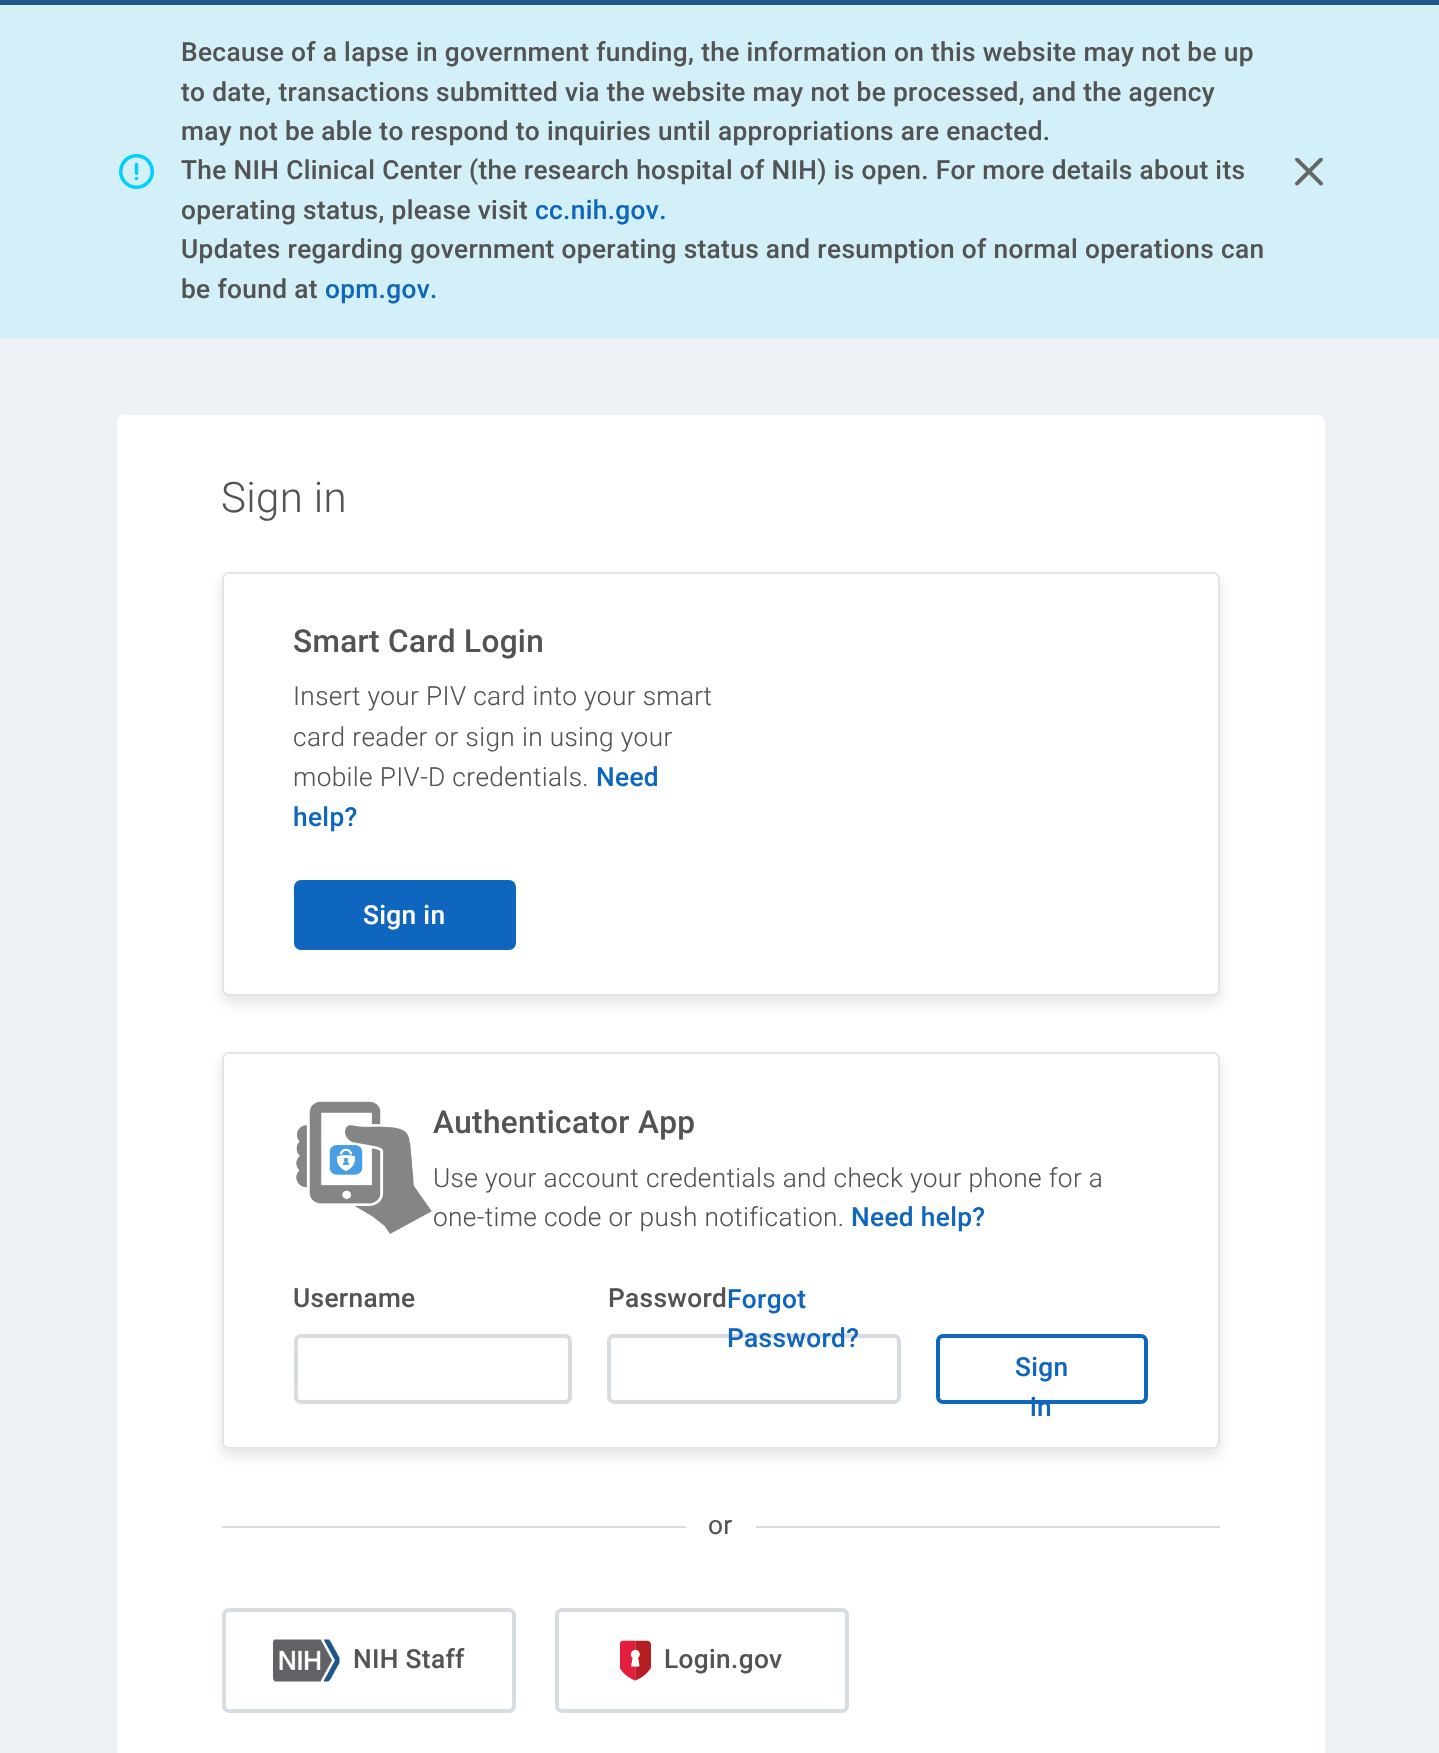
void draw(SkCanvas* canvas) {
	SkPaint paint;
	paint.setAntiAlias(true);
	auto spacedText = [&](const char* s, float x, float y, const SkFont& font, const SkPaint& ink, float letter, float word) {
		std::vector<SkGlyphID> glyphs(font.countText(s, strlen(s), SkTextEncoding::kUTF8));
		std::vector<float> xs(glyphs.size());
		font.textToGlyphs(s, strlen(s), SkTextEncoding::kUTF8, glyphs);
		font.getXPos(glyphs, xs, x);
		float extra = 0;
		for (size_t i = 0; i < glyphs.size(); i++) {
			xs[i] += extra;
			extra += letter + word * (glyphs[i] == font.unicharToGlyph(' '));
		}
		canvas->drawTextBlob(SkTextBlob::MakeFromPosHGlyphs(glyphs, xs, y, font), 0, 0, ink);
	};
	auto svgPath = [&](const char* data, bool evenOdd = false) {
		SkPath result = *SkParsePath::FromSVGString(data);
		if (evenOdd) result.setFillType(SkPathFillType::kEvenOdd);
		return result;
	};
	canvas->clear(0xffedf0f4);
	paint.setColor(0xff20558a);
	canvas->drawRect(SkRect::MakeXYWH(0, 0, 1439, 5), paint);
	paint.setColor(0xffd3f0f8);
	canvas->drawRect(SkRect::MakeXYWH(0, 5, 1439, 333), paint);
	canvas->drawImageRect(SkImages::DeferredFromEncodedData(SkData::MakeFromFileName("img1.png")), SkRect::MakeXYWH(119, 154, 35, 35), SkSamplingOptions());
	SkFont f1(fontMgr->matchFamilyStyle("Roboto", SkFontStyle(500, SkFontStyle::kNormal_Width, SkFontStyle::kUpright_Slant)), 26.25);
	f1.setSubpixel(true);
	paint.setColor(0xff535353);
	spacedText("Because of a lapse in government funding, the information on this website may not be up", 181, 61, f1, paint, 0.35, 0);
	spacedText("to date, transactions submitted via the website may not be processed, and the agency", 181, 101, f1, paint, 0.35, 0);
	spacedText("may not be able to respond to inquiries until appropriations are enacted.", 181, 140, f1, paint, 0.35, 0);
	spacedText("The NIH Clinical Center (the research hospital of NIH) is open. For more details about its", 181, 179, f1, paint, 0.35, 0);
	spacedText("operating status, please visit", 181, 219, f1, paint, 0.35, 0);
	paint.setColor(0xff0e66be);
	spacedText("cc.nih.gov.", 535, 219, f1, paint, 0.35, 0);
	paint.setColor(0xff535353);
	spacedText("Updates regarding government operating status and resumption of normal operations can", 181, 258, f1, paint, 0.35, 0);
	spacedText("be found at", 181, 298, f1, paint, 0.35, 0);
	paint.setColor(0xff0e66be);
	spacedText("opm.gov.", 325, 298, f1, paint, 0.35, 0);
	canvas->drawImageRect(SkImages::DeferredFromEncodedData(SkData::MakeFromFileName("img2.png")), SkRect::MakeXYWH(1295, 158, 28, 28), SkSamplingOptions());
	paint.setColor(0xffffffff);
	canvas->drawRoundRect(SkRect::MakeXYWH(117, 415, 1208, 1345), 7, 7, paint);
	SkFont f2(fontMgr->matchFamilyStyle("Roboto", SkFontStyle(300, SkFontStyle::kNormal_Width, SkFontStyle::kUpright_Slant)), 42);
	f2.setSubpixel(true);
	paint.setColor(0xff535353);
	spacedText("Sign in", 221, 512, f2, paint, 0.35, 0);
	paint.setColor(0xffd7dce3);
	canvas->drawRect(SkRect::MakeXYWH(222, 1526, 998, 2), paint);
	canvas->save();
	canvas->clipPath(svgPath("M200 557H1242V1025H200ZM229 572H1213C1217 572 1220 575 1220 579V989C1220 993 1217 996 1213 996H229C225 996 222 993 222 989V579C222 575 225 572 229 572Z", true), true);
	paint.setColor(0x4aa1a1a1);
	paint.setMaskFilter(SkMaskFilter::MakeBlur(kNormal_SkBlurStyle, 7));
	canvas->drawRoundRect(SkRect::MakeXYWH(222, 579, 998, 424), 7, 7, paint);
	paint.setMaskFilter(nullptr);
	canvas->restore();
	paint.setStroke(true);
	paint.setStrokeWidth(2);
	canvas->drawRoundRect(SkRect::MakeXYWH(223, 573, 996, 422), 6, 6, paint);
	SkFont f3(fontMgr->matchFamilyStyle("Roboto", SkFontStyle(500, SkFontStyle::kNormal_Width, SkFontStyle::kUpright_Slant)), 31.5);
	f3.setSubpixel(true);
	paint.setStroke(false);
	paint.setColor(0xff535353);
	spacedText("Smart Card Login", 293, 652, f3, paint, 0.35, 0);
	SkFont f4(fontMgr->matchFamilyStyle("Roboto", SkFontStyle(300, SkFontStyle::kNormal_Width, SkFontStyle::kUpright_Slant)), 26.25);
	f4.setSubpixel(true);
	spacedText("Insert your PIV card into your smart", 293, 705, f4, paint, 0.35, 0);
	spacedText("card reader or sign in using your", 293, 746, f4, paint, 0.35, 0);
	spacedText("mobile PIV-D credentials.", 293, 786, f4, paint, 0.35, 0);
	paint.setColor(0xff0e66be);
	spacedText("Need", 596, 786, f1, paint, 0.35, 0);
	spacedText("help?", 293, 826, f1, paint, 0.35, 0);
	canvas->drawRoundRect(SkRect::MakeXYWH(296, 882, 218, 66), 5, 5, paint);
	paint.setStroke(true);
	paint.setStrokeWidth(4);
	canvas->drawRoundRect(SkRect::MakeXYWH(296, 882, 218, 66), 5, 5, paint);
	paint.setStroke(false);
	paint.setColor(0xffffffff);
	spacedText("Sign in", 363, 924, f1, paint, 0.35, 0);
	canvas->save();
	canvas->clipPath(svgPath("M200 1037H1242V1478H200ZM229 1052H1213C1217 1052 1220 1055 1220 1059V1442C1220 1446 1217 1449 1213 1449H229C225 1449 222 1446 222 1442V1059C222 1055 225 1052 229 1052Z", true), true);
	paint.setColor(0x4aa1a1a1);
	paint.setMaskFilter(SkMaskFilter::MakeBlur(kNormal_SkBlurStyle, 7));
	canvas->drawRoundRect(SkRect::MakeXYWH(222, 1059, 998, 397), 7, 7, paint);
	paint.setMaskFilter(nullptr);
	canvas->restore();
	paint.setStroke(true);
	paint.setStrokeWidth(2);
	canvas->drawRoundRect(SkRect::MakeXYWH(223, 1053, 996, 395), 6, 6, paint);
	canvas->drawImageRect(SkImages::DeferredFromEncodedData(SkData::MakeFromFileName("img3.png")), SkRect::MakeXYWH(296, 1101, 136, 133), SkSamplingOptions());
	paint.setStroke(false);
	paint.setColor(0xff535353);
	spacedText("Authenticator App", 433, 1133, f3, paint, 0.35, 0);
	spacedText("Use your account credentials and check your phone for a", 433, 1187, f4, paint, 0.35, 0);
	spacedText("one-time code or push notification.", 433, 1226, f4, paint, 0.35, 0);
	paint.setColor(0xff0e66be);
	spacedText("Need help?", 851, 1226, f1, paint, 0.35, 0);
	paint.setColor(0xff535353);
	spacedText("Username", 293, 1307, f1, paint, 0.35, 0);
	paint.setStroke(true);
	paint.setStrokeWidth(4);
	paint.setColor(0xffd7dce3);
	canvas->drawRoundRect(SkRect::MakeXYWH(296, 1336, 274, 66), 5, 5, paint);
	paint.setStroke(false);
	paint.setColor(0xff535353);
	spacedText("Password", 608, 1307, f1, paint, 0.35, 0);
	paint.setColor(0xff0e66be);
	spacedText("Forgot", 727, 1308, f1, paint, 0.35, 0);
	paint.setStroke(true);
	paint.setColor(0xffd7dce3);
	canvas->drawRoundRect(SkRect::MakeXYWH(609, 1336, 290, 66), 5, 5, paint);
	paint.setStroke(false);
	paint.setColor(0xff0e66be);
	spacedText("Password?", 727, 1347, f1, paint, 0.35, 0);
	paint.setStroke(true);
	canvas->drawRoundRect(SkRect::MakeXYWH(938, 1336, 208, 66), 5, 5, paint);
	paint.setStroke(false);
	spacedText("Sign", 1015, 1376, f1, paint, 0.35, 0);
	spacedText("in", 1030, 1416, f1, paint, 0.35, 0);
	paint.setColor(0xffffffff);
	canvas->drawCircle(721, 1526, 35, paint);
	SkFont f5(fontMgr->matchFamilyStyle("Roboto", SkFontStyle::Normal()), 26.25);
	f5.setSubpixel(true);
	paint.setColor(0xff535353);
	spacedText("or", 708, 1534, f5, paint, 0.35, 0);
	paint.setStroke(true);
	paint.setColor(0xffd7dce3);
	canvas->drawRoundRect(SkRect::MakeXYWH(224, 1610, 290, 101), 5, 5, paint);
	canvas->drawImageRect(SkImages::DeferredFromEncodedData(SkData::MakeFromFileName("img4.png")), SkRect::MakeXYWH(273, 1639, 67, 43), SkSamplingOptions());
	paint.setStroke(false);
	paint.setColor(0xff535353);
	spacedText("NIH Staff", 353, 1668, f1, paint, 0.35, 0);
	paint.setStroke(true);
	paint.setColor(0xffd7dce3);
	canvas->drawRoundRect(SkRect::MakeXYWH(557, 1610, 290, 101), 5, 5, paint);
	canvas->drawImageRect(SkImages::DeferredFromEncodedData(SkData::MakeFromFileName("img5.png")), SkRect::MakeXYWH(620, 1640, 31, 41), SkSamplingOptions());
	paint.setStroke(false);
	paint.setColor(0xff535353);
	spacedText("Login.gov", 664, 1668, f1, paint, 0.35, 0);
}
